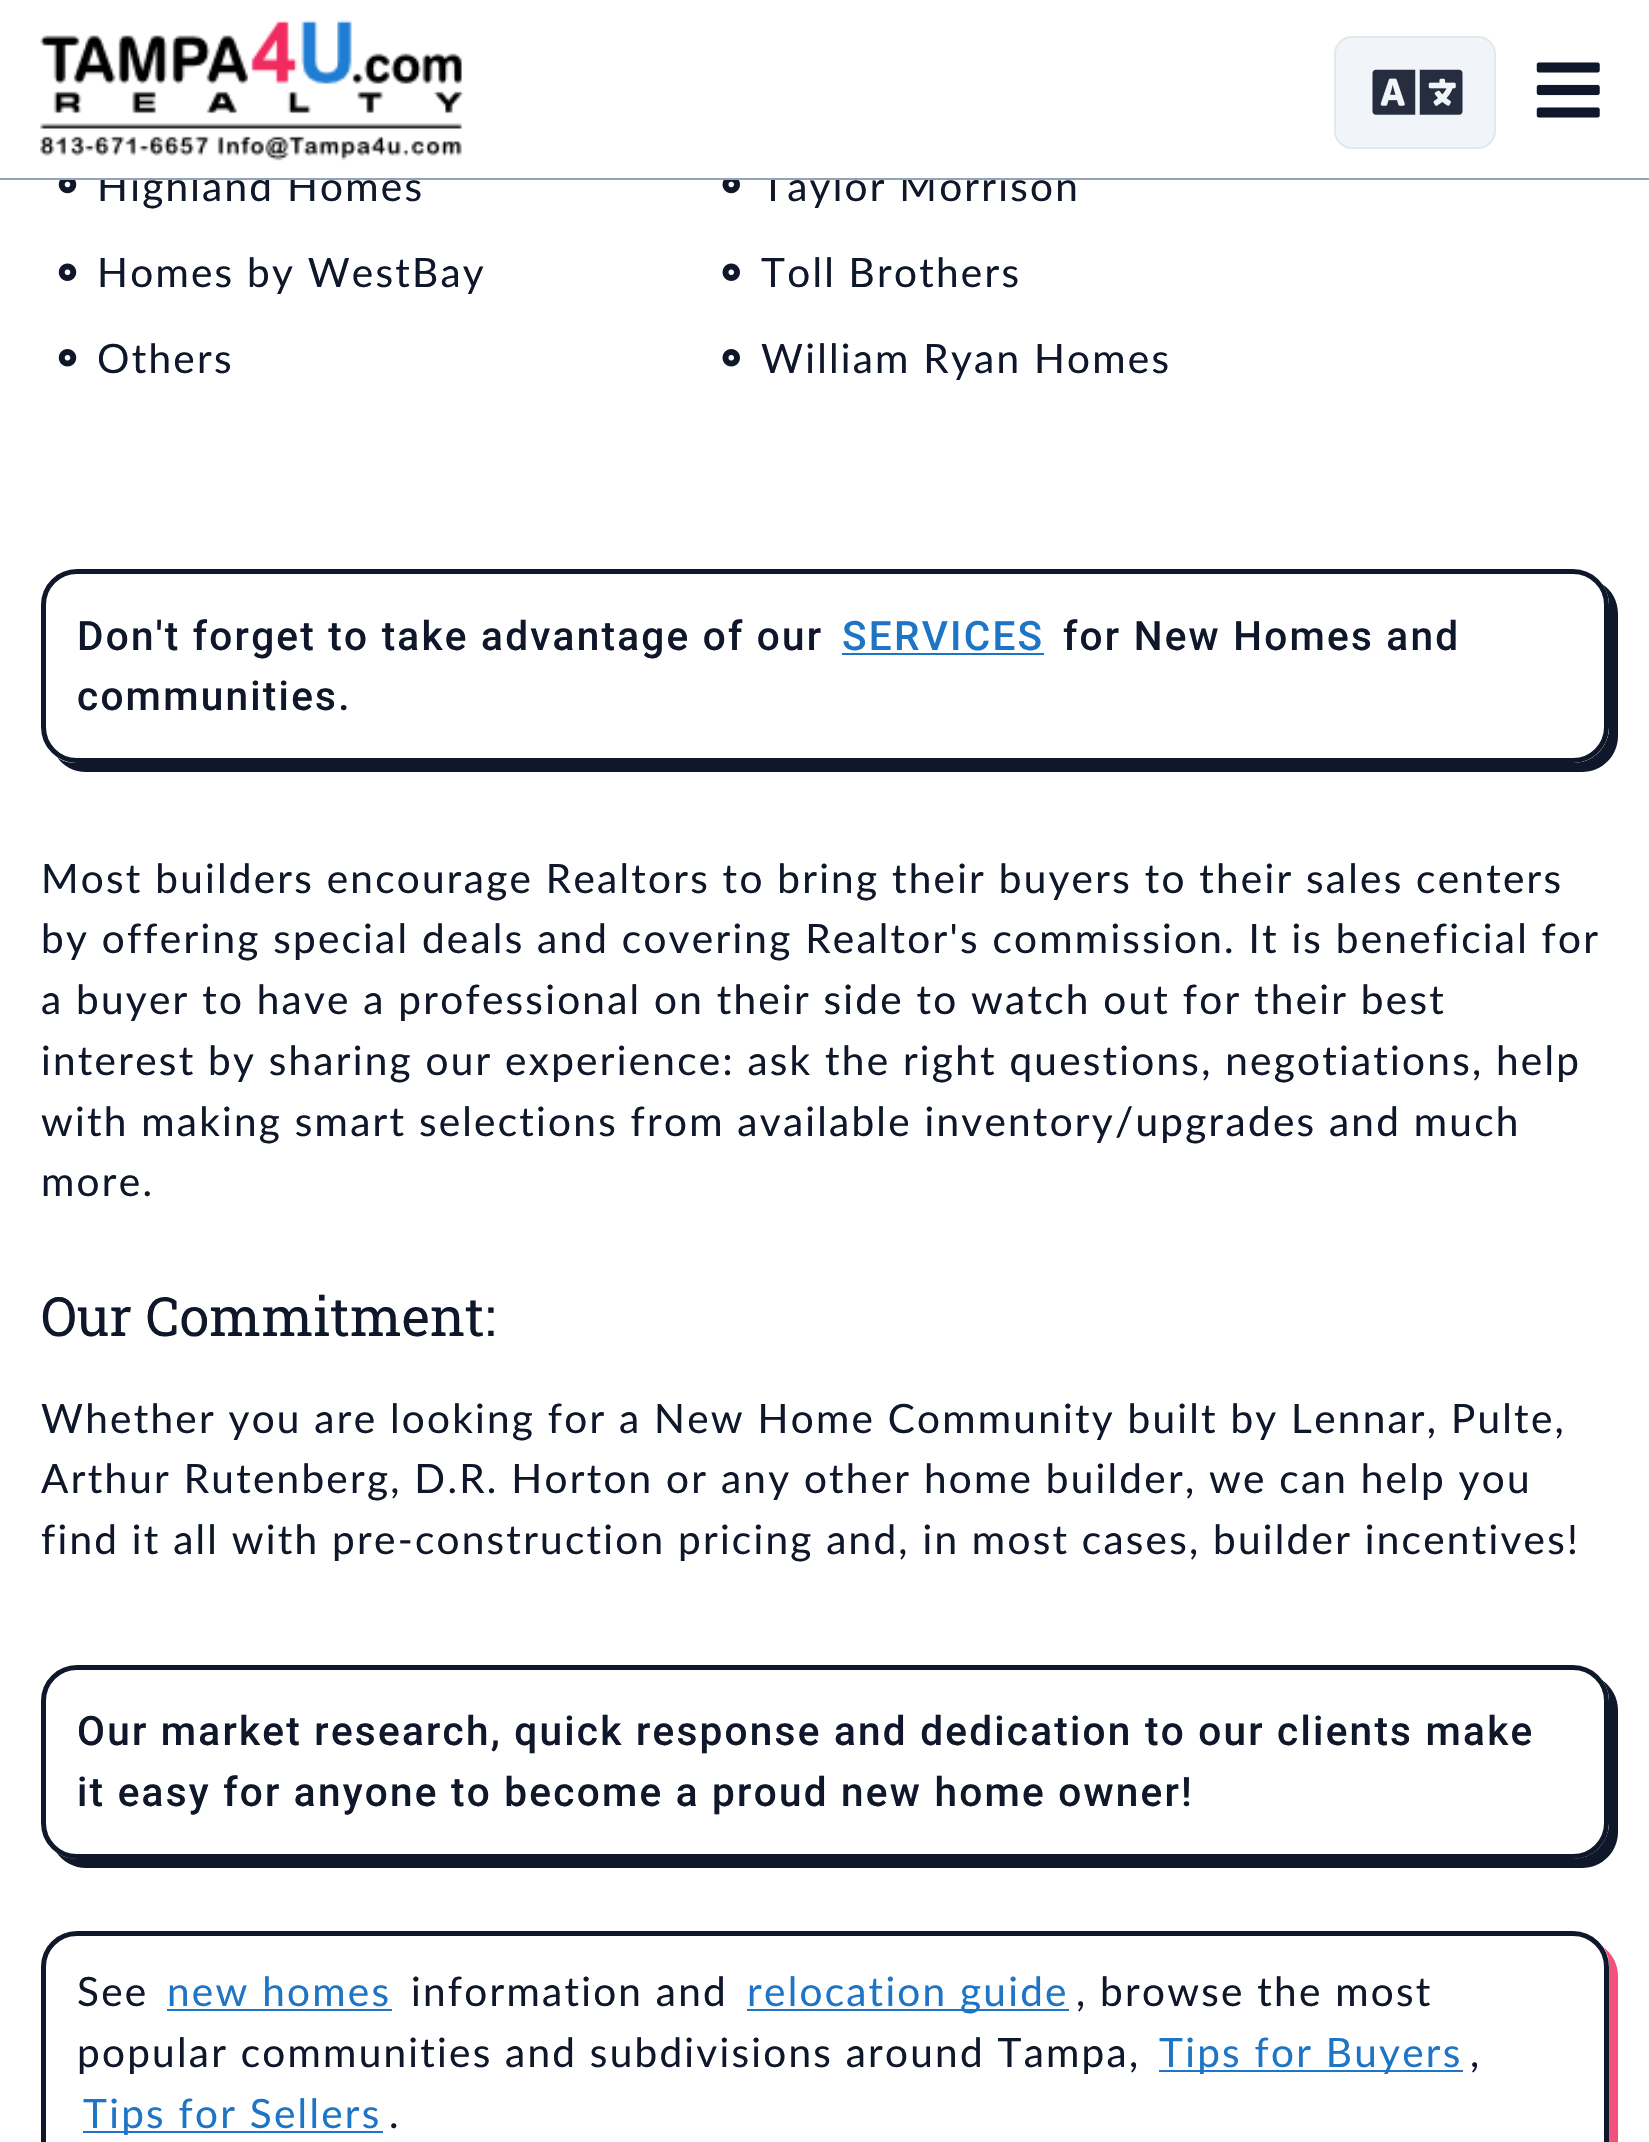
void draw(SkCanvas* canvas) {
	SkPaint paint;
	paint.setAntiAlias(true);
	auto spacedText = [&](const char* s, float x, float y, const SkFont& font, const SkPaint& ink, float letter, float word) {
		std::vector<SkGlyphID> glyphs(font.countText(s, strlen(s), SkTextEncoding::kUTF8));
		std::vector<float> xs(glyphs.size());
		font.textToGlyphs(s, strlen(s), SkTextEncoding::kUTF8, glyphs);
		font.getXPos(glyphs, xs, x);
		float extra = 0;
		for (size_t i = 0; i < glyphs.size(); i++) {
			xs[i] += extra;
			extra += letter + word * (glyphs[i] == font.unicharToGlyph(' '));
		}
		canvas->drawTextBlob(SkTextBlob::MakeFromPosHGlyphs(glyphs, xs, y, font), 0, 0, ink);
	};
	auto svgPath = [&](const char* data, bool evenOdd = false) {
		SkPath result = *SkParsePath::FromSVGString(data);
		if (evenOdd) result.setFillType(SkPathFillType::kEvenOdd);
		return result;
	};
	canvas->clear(0xffffffff);
	SkFont f1(fontMgr->matchFamilyStyle("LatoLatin", SkFontStyle::Normal()), 40.5);
	f1.setSubpixel(true);
	paint.setColor(0xff0f172a);
	spacedText("Highland Homes", 97, 201, f1, paint, 2.25, 0);
	spacedText("Taylor Morrison", 761, 201, f1, paint, 2.25, 0);
	paint.setColor(0xffffffff);
	canvas->drawRect(SkRect::MakeXYWH(100, 171, 906, 7), paint);
	paint.setColor(0xff94a3b8);
	canvas->drawRect(SkRect::MakeXYWH(0, 178, 1649, 2), paint);
	canvas->drawImageRect(SkImages::DeferredFromEncodedData(SkData::MakeFromFileName("img1.png")), SkRect::MakeXYWH(40, 20, 424, 141), SkSamplingOptions());
	paint.setColor(0xfff1f5f9);
	canvas->drawRoundRect(SkRect::MakeXYWH(1335, 37, 160, 111), 17, 17, paint);
	paint.setStroke(true);
	paint.setStrokeWidth(2);
	paint.setColor(0xffe2e8f0);
	canvas->drawRoundRect(SkRect::MakeXYWH(1335, 37, 160, 111), 17, 17, paint);
	canvas->drawImageRect(SkImages::DeferredFromEncodedData(SkData::MakeFromFileName("img2.png")), SkRect::MakeXYWH(1372, 69, 91, 46), SkSamplingOptions());
	canvas->drawImageRect(SkImages::DeferredFromEncodedData(SkData::MakeFromFileName("img3.png")), SkRect::MakeXYWH(1536, 62, 64, 56), SkSamplingOptions());
	canvas->drawImageRect(SkImages::DeferredFromEncodedData(SkData::MakeFromFileName("img4.png")), SkRect::MakeXYWH(58, 180, 19, 14), SkSamplingOptions());
	canvas->drawImageRect(SkImages::DeferredFromEncodedData(SkData::MakeFromFileName("img5.png")), SkRect::MakeXYWH(58, 263, 19, 18), SkSamplingOptions());
	paint.setStroke(false);
	paint.setColor(0xff0f172a);
	spacedText("Homes by WestBay", 97, 287, f1, paint, 2.25, 0);
	canvas->drawImageRect(SkImages::DeferredFromEncodedData(SkData::MakeFromFileName("img6.png")), SkRect::MakeXYWH(58, 349, 19, 18), SkSamplingOptions());
	spacedText("Others", 97, 373, f1, paint, 2.25, 0);
	canvas->drawImageRect(SkImages::DeferredFromEncodedData(SkData::MakeFromFileName("img7.png")), SkRect::MakeXYWH(722, 180, 18, 14), SkSamplingOptions());
	canvas->drawImageRect(SkImages::DeferredFromEncodedData(SkData::MakeFromFileName("img8.png")), SkRect::MakeXYWH(722, 263, 18, 18), SkSamplingOptions());
	spacedText("Toll Brothers", 761, 287, f1, paint, 2.25, 0);
	canvas->drawImageRect(SkImages::DeferredFromEncodedData(SkData::MakeFromFileName("img9.png")), SkRect::MakeXYWH(722, 349, 18, 18), SkSamplingOptions());
	spacedText("William Ryan Homes", 761, 373, f1, paint, 2.25, 0);
	canvas->drawPath(svgPath("M57 757C63 766 74 772 86 772H1582C1602 772 1618 756 1618 736V614C1618 601 1612 590 1602 584C1606 590 1609 597 1609 605V727C1609 747 1593 763 1573 763H76C69 763 62 761 57 757Z"), paint);
	paint.setColor(0xffffffff);
	canvas->drawRoundRect(SkRect::MakeXYWH(41, 569, 1568, 194), 36, 36, paint);
	paint.setColor(0xff1e74c5);
	canvas->drawRect(SkRect::MakeXYWH(842, 653, 202, 2), paint);
	paint.setStroke(true);
	paint.setStrokeWidth(5);
	paint.setColor(0xff0f172a);
	canvas->drawRoundRect(SkRect::MakeXYWH(43.5, 571.5, 1563, 189), 33.5, 33.5, paint);
	SkFont f2(fontMgr->matchFamilyStyle("Roboto", SkFontStyle(500, SkFontStyle::kNormal_Width, SkFontStyle::kUpright_Slant)), 40.5);
	f2.setSubpixel(true);
	paint.setStroke(false);
	spacedText("Don't forget to take advantage of our", 77, 650, f2, paint, 2.25, 0);
	paint.setColor(0xff1e74c5);
	spacedText("SERVICES", 842, 650, f2, paint, 2.25, 0);
	paint.setColor(0xff0f172a);
	spacedText("for New Homes and", 1063, 650, f2, paint, 2.25, 0);
	spacedText("communities.", 77, 710, f2, paint, 2.25, 0);
	spacedText("Most builders encourage Realtors to bring their buyers to their sales centers", 41, 893, f1, paint, 2.25, 0);
	spacedText("by offering special deals and covering Realtor's commission. It is beneficial for", 41, 953, f1, paint, 2.25, 0);
	spacedText("a buyer to have a professional on their side to watch out for their best", 41, 1014, f1, paint, 2.25, 0);
	spacedText("interest by sharing our experience: ask the right questions, negotiations, help", 41, 1075, f1, paint, 2.25, 0);
	spacedText("with making smart selections from available inventory/upgrades and much", 41, 1136, f1, paint, 2.25, 0);
	spacedText("more.", 41, 1196, f1, paint, 2.25, 0);
	SkFont f3(fontMgr->matchFamilyStyle("Roboto Slab", SkFontStyle::Normal()), 54);
	f3.setSubpixel(true);
	canvas->drawString("Our Commitment:", 41, 1336, f3, paint);
	spacedText("Whether you are looking for a New Home Community built by Lennar, Pulte,", 41, 1433, f1, paint, 2.25, 0);
	spacedText("Arthur Rutenberg, D.R. Horton or any other home builder, we can help you", 41, 1493, f1, paint, 2.25, 0);
	spacedText("find it all with pre-construction pricing and, in most cases, builder incentives!", 41, 1554, f1, paint, 2.25, 0);
	canvas->drawPath(svgPath("M56 1852C63 1862 74 1868 86 1868H1582C1602 1868 1618 1852 1618 1832V1710C1618 1698 1612 1687 1602 1680C1606 1686 1609 1693 1609 1701V1822C1609 1842 1593 1858 1573 1858H76C69 1858 62 1856 56 1852Z"), paint);
	paint.setColor(0xffffffff);
	canvas->drawRoundRect(SkRect::MakeXYWH(41, 1665, 1568, 194), 36, 36, paint);
	paint.setStroke(true);
	paint.setColor(0xff0f172a);
	canvas->drawRoundRect(SkRect::MakeXYWH(43.5, 1667.5, 1563, 189), 33.5, 33.5, paint);
	paint.setStroke(false);
	spacedText("Our market research, quick response and dedication to our clients make", 77, 1745, f2, paint, 2.25, 0);
	spacedText("it easy for anyone to become a proud new home owner!", 77, 1806, f2, paint, 2.25, 0);
	paint.setColor(0xfff2517c);
	canvas->drawPath(svgPath("M57 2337C64 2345 74 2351 86 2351H1582C1602 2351 1618 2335 1618 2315V1976C1618 1964 1612 1953 1603 1947C1607 1952 1609 1959 1609 1966V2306C1609 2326 1593 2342 1573 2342H76C69 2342 63 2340 57 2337Z"), paint);
	paint.setColor(0xffffffff);
	canvas->drawRoundRect(SkRect::MakeXYWH(41, 1931, 1568, 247), 36, 36, paint);
	paint.setColor(0xff1e74c5);
	canvas->drawRect(SkRect::MakeXYWH(167, 2009, 225, 2), paint);
	canvas->drawRect(SkRect::MakeXYWH(747, 2009, 322, 2), paint);
	canvas->drawRect(SkRect::MakeXYWH(1159, 2070, 304, 2), paint);
	canvas->drawRect(SkRect::MakeXYWH(83, 2131, 300, 2), paint);
	paint.setStroke(true);
	paint.setColor(0xff0f172a);
	canvas->drawRoundRect(SkRect::MakeXYWH(43.5, 1933.5, 1563, 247), 33.5, 33.5, paint);
	paint.setStroke(false);
	spacedText("See", 77, 2006, f1, paint, 2.25, 0);
	paint.setColor(0xff1e74c5);
	spacedText("new homes", 167, 2006, f1, paint, 2.25, 0);
	paint.setColor(0xff0f172a);
	spacedText("information and", 411, 2006, f1, paint, 2.25, 0);
	paint.setColor(0xff1e74c5);
	spacedText("relocation guide", 747, 2006, f1, paint, 2.25, 0);
	paint.setColor(0xff0f172a);
	spacedText(", browse the most", 1076, 2006, f1, paint, 2.25, 0);
	spacedText("popular communities and subdivisions around Tampa,", 77, 2067, f1, paint, 2.25, 0);
	paint.setColor(0xff1e74c5);
	spacedText("Tips for Buyers", 1159, 2067, f1, paint, 2.25, 0);
	paint.setColor(0xff0f172a);
	spacedText(",", 1470, 2067, f1, paint, 2.25, 0);
	paint.setColor(0xff1e74c5);
	spacedText("Tips for Sellers", 83, 2128, f1, paint, 2.25, 0);
	paint.setColor(0xff0f172a);
	spacedText(".", 389, 2128, f1, paint, 2.25, 0);
}
